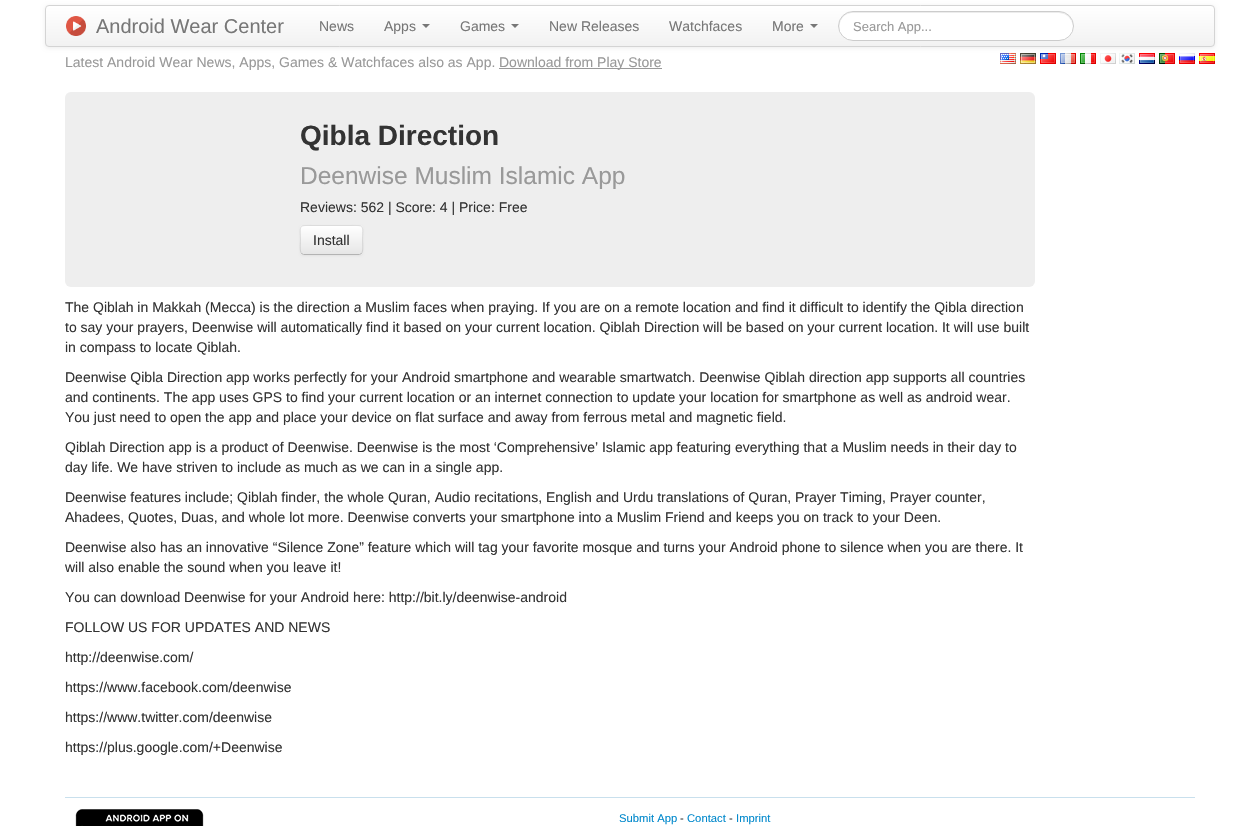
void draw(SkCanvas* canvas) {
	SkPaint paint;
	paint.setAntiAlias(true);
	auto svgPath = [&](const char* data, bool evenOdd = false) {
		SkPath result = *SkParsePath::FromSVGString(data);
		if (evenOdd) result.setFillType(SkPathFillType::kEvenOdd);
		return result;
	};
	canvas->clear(0xffffffff);
	paint.setColor(0x12000000);
	paint.setMaskFilter(SkMaskFilter::MakeBlur(kNormal_SkBlurStyle, 2));
	canvas->drawRoundRect(SkRect::MakeXYWH(45, 6, 1170, 42), 4, 4, paint);
	paint.setMaskFilter(nullptr);
	canvas->save();
	canvas->clipPath(svgPath("M49 5H1211C1213 5 1215 7 1215 9V43C1215 45 1213 47 1211 47H49C47 47 45 45 45 43V9C45 7 47 5 49 5Z"), true);
	{
		const SkColor colors[] = {0xffffffff, 0xfff2f2f2};
		const float stops[] = {0, 1};
		const SkPoint ends[] = {{630, 6}, {630, 46}};
		paint.setShader(SkGradientShader::MakeLinear(ends, colors, stops, 2, SkTileMode::kClamp));
		paint.setAlpha(255);
	}
	canvas->drawRect(SkRect::MakeXYWH(45, 6, 1170, 40), paint);
	canvas->restore();
	paint.setStroke(true);
	paint.setStrokeWidth(1);
	paint.setShader(nullptr);
	paint.setColor(0xffd4d4d4);
	canvas->drawRoundRect(SkRect::MakeXYWH(45.5, 5.5, 1169, 41), 3.5, 3.5, paint);
	canvas->drawImageRect(SkImages::DeferredFromEncodedData(SkData::MakeFromFileName("img1.png")), SkRect::MakeXYWH(66, 16, 20, 20), SkSamplingOptions());
	SkFont f1(fontMgr->matchFamilyStyle("Liberation Sans", SkFontStyle::Normal()), 20);
	f1.setSubpixel(true);
	paint.setStroke(false);
	paint.setColor(0xff777777);
	canvas->drawString("Android Wear Center", 96, 33, f1, paint);
	SkFont f2(fontMgr->matchFamilyStyle("Liberation Sans", SkFontStyle::Normal()), 14);
	f2.setSubpixel(true);
	canvas->drawString("News", 319, 31, f2, paint);
	canvas->drawString("Apps", 384, 31, f2, paint);
	canvas->drawPath(svgPath("M422 24H430L426 28Z"), paint);
	canvas->drawString("Games", 460, 31, f2, paint);
	canvas->drawPath(svgPath("M511 24H519L515 28Z"), paint);
	canvas->drawString("New Releases", 549, 31, f2, paint);
	canvas->drawString("Watchfaces", 669, 31, f2, paint);
	canvas->drawString("More", 772, 31, f2, paint);
	canvas->drawPath(svgPath("M810 24H818L814 28Z"), paint);
	paint.setColor(0xffffffff);
	canvas->drawRoundRect(SkRect::MakeXYWH(838, 11, 236, 30), 15, 15, paint);
	paint.setColor(0xffececec);
	canvas->drawPath(svgPath("M853 13H1059L1064 14C1069 16 1072 21 1073 26C1073 18 1067 12 1059 12H853C845 12 839 18 839 26C839 28 839 30 840 32C838 23 842 13 853 13Z"), paint);
	paint.setStroke(true);
	paint.setColor(0xffcccccc);
	canvas->drawRoundRect(SkRect::MakeXYWH(838.5, 11.5, 235, 29), 14.5, 14.5, paint);
	SkFont f3(fontMgr->matchFamilyStyle("Liberation Sans", SkFontStyle::Normal()), 13);
	f3.setSubpixel(true);
	paint.setStroke(false);
	paint.setColor(0xff999999);
	canvas->drawString("Search App...", 853, 31, f3, paint);
	canvas->drawString("Latest Android Wear News, Apps, Games & Watchfaces also as App.", 65, 67, f2, paint);
	canvas->drawRect(SkRect::MakeXYWH(499, 68, 163, 1), paint);
	canvas->drawString("Download from Play Store", 499, 67, f2, paint);
	canvas->drawImageRect(SkImages::DeferredFromEncodedData(SkData::MakeFromFileName("img2.png")), SkRect::MakeXYWH(1000, 53, 16, 11), SkSamplingOptions());
	canvas->drawImageRect(SkImages::DeferredFromEncodedData(SkData::MakeFromFileName("img3.png")), SkRect::MakeXYWH(1020, 53, 16, 11), SkSamplingOptions());
	canvas->drawImageRect(SkImages::DeferredFromEncodedData(SkData::MakeFromFileName("img4.png")), SkRect::MakeXYWH(1040, 53, 16, 11), SkSamplingOptions());
	canvas->drawImageRect(SkImages::DeferredFromEncodedData(SkData::MakeFromFileName("img5.png")), SkRect::MakeXYWH(1060, 53, 16, 11), SkSamplingOptions());
	canvas->drawImageRect(SkImages::DeferredFromEncodedData(SkData::MakeFromFileName("img6.png")), SkRect::MakeXYWH(1080, 53, 16, 11), SkSamplingOptions());
	canvas->drawImageRect(SkImages::DeferredFromEncodedData(SkData::MakeFromFileName("img7.png")), SkRect::MakeXYWH(1100, 53, 16, 11), SkSamplingOptions());
	canvas->drawImageRect(SkImages::DeferredFromEncodedData(SkData::MakeFromFileName("img8.png")), SkRect::MakeXYWH(1119, 53, 16, 11), SkSamplingOptions());
	canvas->drawImageRect(SkImages::DeferredFromEncodedData(SkData::MakeFromFileName("img9.png")), SkRect::MakeXYWH(1139, 53, 16, 11), SkSamplingOptions());
	canvas->drawImageRect(SkImages::DeferredFromEncodedData(SkData::MakeFromFileName("img10.png")), SkRect::MakeXYWH(1159, 53, 16, 11), SkSamplingOptions());
	canvas->drawImageRect(SkImages::DeferredFromEncodedData(SkData::MakeFromFileName("img11.png")), SkRect::MakeXYWH(1179, 53, 16, 11), SkSamplingOptions());
	canvas->drawImageRect(SkImages::DeferredFromEncodedData(SkData::MakeFromFileName("img12.png")), SkRect::MakeXYWH(1199, 53, 16, 11), SkSamplingOptions());
	paint.setColor(0xffeeeeee);
	canvas->drawRoundRect(SkRect::MakeXYWH(65, 92, 970, 195), 6, 6, paint);
	SkFont f4(fontMgr->matchFamilyStyle("Liberation Sans", SkFontStyle::Bold()), 28);
	f4.setSubpixel(true);
	paint.setColor(0xff333333);
	canvas->drawString("Qibla Direction", 300, 145, f4, paint);
	SkFont f5(fontMgr->matchFamilyStyle("Liberation Sans", SkFontStyle::Normal()), 24.5);
	f5.setSubpixel(true);
	paint.setColor(0xff999999);
	canvas->drawString("Deenwise Muslim Islamic App", 300, 184, f5, paint);
	paint.setColor(0xff333333);
	canvas->drawString("Reviews: 562 | Score: 4 | Price: Free", 300, 212, f2, paint);
	paint.setColor(0x0d000000);
	paint.setMaskFilter(SkMaskFilter::MakeBlur(kNormal_SkBlurStyle, 1));
	canvas->drawRoundRect(SkRect::MakeXYWH(300, 226, 63, 30), 4, 4, paint);
	paint.setMaskFilter(nullptr);
	paint.setColor(0xfff5f5f5);
	canvas->drawRoundRect(SkRect::MakeXYWH(300, 225, 63, 30), 4, 4, paint);
	canvas->save();
	canvas->clipPath(svgPath("M304 225H359C361 225 363 227 363 229V251C363 253 361 255 359 255H304C302 255 300 253 300 251V229C300 227 302 225 304 225Z"), true);
	{
		const SkColor colors[] = {0xffffffff, 0xffe6e6e6};
		const float stops[] = {0, 1};
		const SkPoint ends[] = {{332, 226}, {332, 254}};
		paint.setShader(SkGradientShader::MakeLinear(ends, colors, stops, 2, SkTileMode::kClamp));
		paint.setAlpha(255);
	}
	canvas->drawRect(SkRect::MakeXYWH(300, 226, 63, 28), paint);
	canvas->restore();
	paint.setShader(nullptr);
	paint.setColor(0xffffffff);
	canvas->drawPath(svgPath("M304 227H359C361 227 362 228 362 230C362 224 354 226 350 226H313C309 226 301 224 301 230C301 228 302 227 304 227Z"), paint);
	paint.setStroke(true);
	paint.setColor(0xffb3b3b3);
	canvas->drawPath(svgPath("M361.5 253.5L359.5 254.5H303.5L301.5 253.5"), paint);
	paint.setColor(0x1a000000);
	canvas->drawPath(svgPath("M301.5 253.5C299.5 251.5 300.5 243 300.5 240C300.5 224.5 298 225.5 313 225.5H350C365 225.5 362.5 224.5 362.5 240C362.5 243 363.5 251.5 361.5 253.5"), paint);
	paint.setStroke(false);
	paint.setColor(0xff333333);
	canvas->drawString("Install", 313, 245, f2, paint);
	canvas->drawString("The Qiblah in Makkah (Mecca) is the direction a Muslim faces when praying. If you are on a remote location and find it difficult to identify the Qibla direction", 65, 312, f2, paint);
	canvas->drawString("to say your prayers, Deenwise will automatically find it based on your current location. Qiblah Direction will be based on your current location. It will use built", 65, 332, f2, paint);
	canvas->drawString("in compass to locate Qiblah.", 65, 352, f2, paint);
	canvas->drawString("Deenwise Qibla Direction app works perfectly for your Android smartphone and wearable smartwatch. Deenwise Qiblah direction app supports all countries", 65, 382, f2, paint);
	canvas->drawString("and continents. The app uses GPS to find your current location or an internet connection to update your location for smartphone as well as android wear.", 65, 402, f2, paint);
	canvas->drawString("You just need to open the app and place your device on flat surface and away from ferrous metal and magnetic field.", 65, 422, f2, paint);
	canvas->drawString("Qiblah Direction app is a product of Deenwise. Deenwise is the most ‘Comprehensive’ Islamic app featuring everything that a Muslim needs in their day to", 65, 452, f2, paint);
	canvas->drawString("day life. We have striven to include as much as we can in a single app.", 65, 472, f2, paint);
	canvas->drawString("Deenwise features include; Qiblah finder, the whole Quran, Audio recitations, English and Urdu translations of Quran, Prayer Timing, Prayer counter,", 65, 502, f2, paint);
	canvas->drawString("Ahadees, Quotes, Duas, and whole lot more. Deenwise converts your smartphone into a Muslim Friend and keeps you on track to your Deen.", 65, 522, f2, paint);
	canvas->drawString("Deenwise also has an innovative “Silence Zone” feature which will tag your favorite mosque and turns your Android phone to silence when you are there. It", 65, 552, f2, paint);
	canvas->drawString("will also enable the sound when you leave it!", 65, 572, f2, paint);
	canvas->drawString("You can download Deenwise for your Android here: http://bit.ly/deenwise-android", 65, 602, f2, paint);
	canvas->drawString("FOLLOW US FOR UPDATES AND NEWS", 65, 632, f2, paint);
	canvas->drawString("http://deenwise.com/", 65, 662, f2, paint);
	canvas->drawString("https://www.facebook.com/deenwise", 65, 692, f2, paint);
	canvas->drawString("https://www.twitter.com/deenwise", 65, 722, f2, paint);
	canvas->drawString("https://plus.google.com/+Deenwise", 65, 752, f2, paint);
	paint.setColor(0xffc9e0ed);
	canvas->drawRect(SkRect::MakeXYWH(65, 797, 1130, 1), paint);
	canvas->drawImageRect(SkImages::DeferredFromEncodedData(SkData::MakeFromFileName("img13.png")), SkRect::MakeXYWH(75, 809, 129, 17), SkSamplingOptions());
	SkFont f6(fontMgr->matchFamilyStyle("Liberation Sans", SkFontStyle::Normal()), 11.25);
	f6.setSubpixel(true);
	paint.setColor(0xff0088cc);
	canvas->drawString("Submit App", 619, 822, f6, paint);
	paint.setColor(0xff333333);
	canvas->drawString("-", 680, 822, f6, paint);
	paint.setColor(0xff0088cc);
	canvas->drawString("Contact", 687, 822, f6, paint);
	paint.setColor(0xff333333);
	canvas->drawString("-", 729, 822, f6, paint);
	paint.setColor(0xff0088cc);
	canvas->drawString("Imprint", 736, 822, f6, paint);
}
